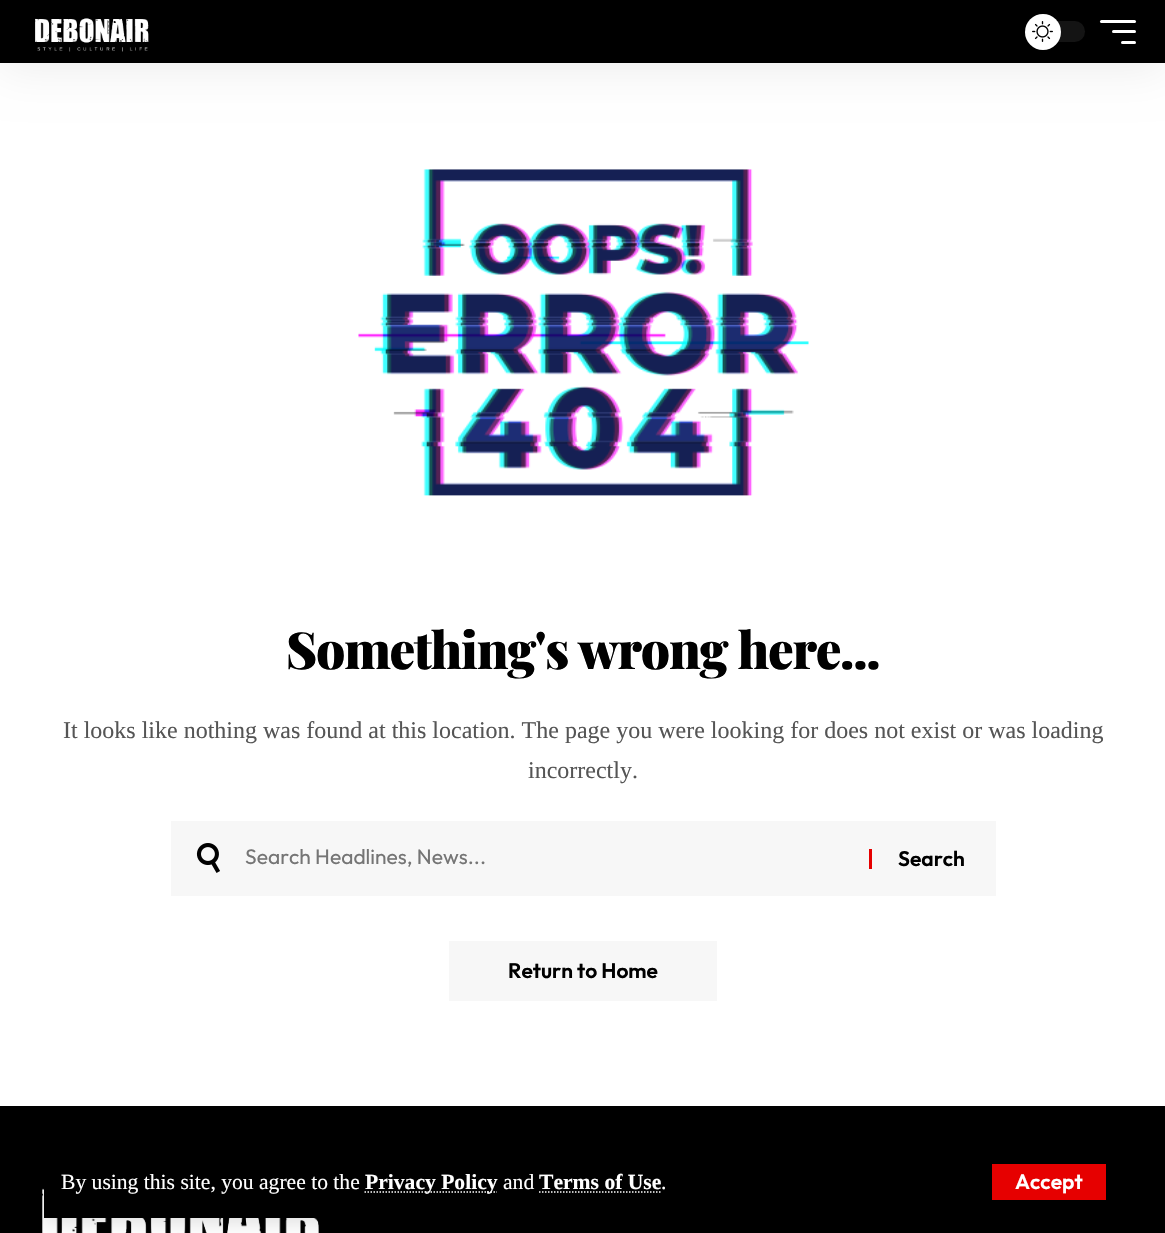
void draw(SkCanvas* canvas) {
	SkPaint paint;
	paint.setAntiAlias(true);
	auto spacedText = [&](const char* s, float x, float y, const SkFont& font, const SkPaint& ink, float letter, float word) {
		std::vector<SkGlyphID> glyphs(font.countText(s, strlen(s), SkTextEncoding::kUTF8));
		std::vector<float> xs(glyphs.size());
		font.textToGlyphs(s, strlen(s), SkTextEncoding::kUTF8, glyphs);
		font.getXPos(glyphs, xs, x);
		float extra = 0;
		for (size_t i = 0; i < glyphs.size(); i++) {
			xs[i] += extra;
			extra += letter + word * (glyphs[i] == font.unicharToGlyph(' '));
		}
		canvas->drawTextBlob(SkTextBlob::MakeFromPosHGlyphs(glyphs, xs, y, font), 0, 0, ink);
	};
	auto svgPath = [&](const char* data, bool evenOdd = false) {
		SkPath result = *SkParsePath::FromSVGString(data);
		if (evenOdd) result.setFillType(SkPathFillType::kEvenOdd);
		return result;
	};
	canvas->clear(0xffffffff);
	canvas->drawImageRect(SkImages::DeferredFromEncodedData(SkData::MakeFromFileName("img1.png")), SkRect::MakeXYWH(358, 169, 451, 327), SkSamplingOptions());
	SkFont f1(fontMgr->matchFamilyStyle("Playfair Display", SkFontStyle(900, SkFontStyle::kNormal_Width, SkFontStyle::kUpright_Slant)), 51);
	f1.setSubpixel(true);
	paint.setColor(0xff000000);
	spacedText("Something's wrong here...", 286, 669, f1, paint, -1.25, 0);
	SkFont f2(fontMgr->matchFamilyStyle("Liberation Serif", SkFontStyle::Normal()), 24);
	f2.setSubpixel(true);
	paint.setColor(0xff555555);
	canvas->drawString("It looks like nothing was found at this location. The page you were looking for does not exist or was loading", 63, 738, f2, paint);
	canvas->drawString("incorrectly.", 528, 778, f2, paint);
	paint.setColor(0xfff7f7f7);
	canvas->drawRect(SkRect::MakeXYWH(171, 821, 825, 75), paint);
	canvas->drawImageRect(SkImages::DeferredFromEncodedData(SkData::MakeFromFileName("img2.png")), SkRect::MakeXYWH(196, 843, 24, 30), SkSamplingOptions());
	SkFont f3(fontMgr->matchFamilyStyle("Outfit", SkFontStyle::Normal()), 21);
	f3.setSubpixel(true);
	paint.setColor(0xff757575);
	canvas->drawString("Search Headlines, News...", 245, 864, f3, paint);
	paint.setColor(0xffe60000);
	canvas->drawRect(SkRect::MakeXYWH(869, 849, 3, 20), paint);
	SkFont f4(fontMgr->matchFamilyStyle("Outfit", SkFontStyle(600, SkFontStyle::kNormal_Width, SkFontStyle::kUpright_Slant)), 21);
	f4.setSubpixel(true);
	paint.setColor(0xff000000);
	canvas->drawString("Search", 898, 866, f4, paint);
	paint.setColor(0xfff7f7f7);
	canvas->drawRect(SkRect::MakeXYWH(449, 941, 268, 60), paint);
	paint.setColor(0xff000000);
	canvas->drawString("Return to Home", 508, 978, f4, paint);
	canvas->drawRect(SkRect::MakeXYWH(0, 1106, 1165, 127), paint);
	canvas->drawImageRect(SkImages::DeferredFromEncodedData(SkData::MakeFromFileName("img3.png")), SkRect::MakeXYWH(42, 1188, 277, 45), SkSamplingOptions());
	paint.setColor(0x12000000);
	paint.setMaskFilter(SkMaskFilter::MakeBlur(kNormal_SkBlurStyle, 22.5));
	canvas->drawRect(SkRect::MakeXYWH(0, 6, 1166, 63), paint);
	paint.setMaskFilter(nullptr);
	paint.setColor(0xff000000);
	canvas->drawRect(SkRect::MakeXYWH(0, 0, 1165, 63), paint);
	canvas->drawImageRect(SkImages::DeferredFromEncodedData(SkData::MakeFromFileName("img4.png")), SkRect::MakeXYWH(35, 18, 114, 34), SkSamplingOptions());
	paint.setColor(0xff141414);
	canvas->drawRoundRect(SkRect::MakeXYWH(1025, 21, 60, 21), 10.5, 10.5, paint);
	paint.setColor(0xffffffff);
	canvas->drawCircle(1043, 32, 18, paint);
	canvas->drawImageRect(SkImages::DeferredFromEncodedData(SkData::MakeFromFileName("img5.png")), SkRect::MakeXYWH(1032, 21, 21, 21), SkSamplingOptions());
	canvas->drawRoundRect(SkRect::MakeXYWH(1100, 20, 36, 3), 1.5, 1.5, paint);
	canvas->drawRoundRect(SkRect::MakeXYWH(1112, 30, 24, 3), 1.5, 1.5, paint);
	canvas->drawRoundRect(SkRect::MakeXYWH(1121, 41, 15, 3), 1.5, 1.5, paint);
	paint.setColor(0x1f000000);
	paint.setMaskFilter(SkMaskFilter::MakeBlur(kNormal_SkBlurStyle, 9));
	canvas->drawRect(SkRect::MakeXYWH(44, 1151, 1080, 72), paint);
	paint.setMaskFilter(nullptr);
	paint.setColor(0xff000000);
	canvas->drawRect(SkRect::MakeXYWH(44, 1188, 275, 30), paint);
	SkFont f5(fontMgr->matchFamilyStyle("Liberation Serif", SkFontStyle::Normal()), 21.6);
	f5.setSubpixel(true);
	paint.setColor(0xffffffff);
	canvas->drawString("By using this site, you agree to the", 61, 1189, f5, paint);
	paint.setStroke(true);
	paint.setStrokeWidth(1.5);
	paint.setPathEffect(SkDashPathEffect::Make({{1.5f, 1.5f}}, 0));
	canvas->drawPath(svgPath("M364.5 1192H497"), paint);
	paint.setPathEffect(nullptr);
	SkFont f6(fontMgr->matchFamilyStyle("Liberation Serif", SkFontStyle::Bold()), 21.6);
	f6.setSubpixel(true);
	paint.setStroke(false);
	canvas->drawString("Privacy Policy", 365, 1189, f6, paint);
	canvas->drawString("and", 503, 1189, f5, paint);
	canvas->drawString("Terms of Use", 539, 1189, f6, paint);
	paint.setStroke(true);
	paint.setPathEffect(SkDashPathEffect::Make({{1.5f, 1.5f}}, 0));
	canvas->drawPath(svgPath("M539 1192H661.5"), paint);
	paint.setPathEffect(nullptr);
	paint.setStroke(false);
	canvas->drawString(".", 661, 1189, f5, paint);
	paint.setColor(0xffe60000);
	canvas->drawRect(SkRect::MakeXYWH(992, 1164, 114, 36), paint);
	paint.setColor(0xffffffff);
	canvas->drawString("Accept", 1015, 1189, f4, paint);
}
